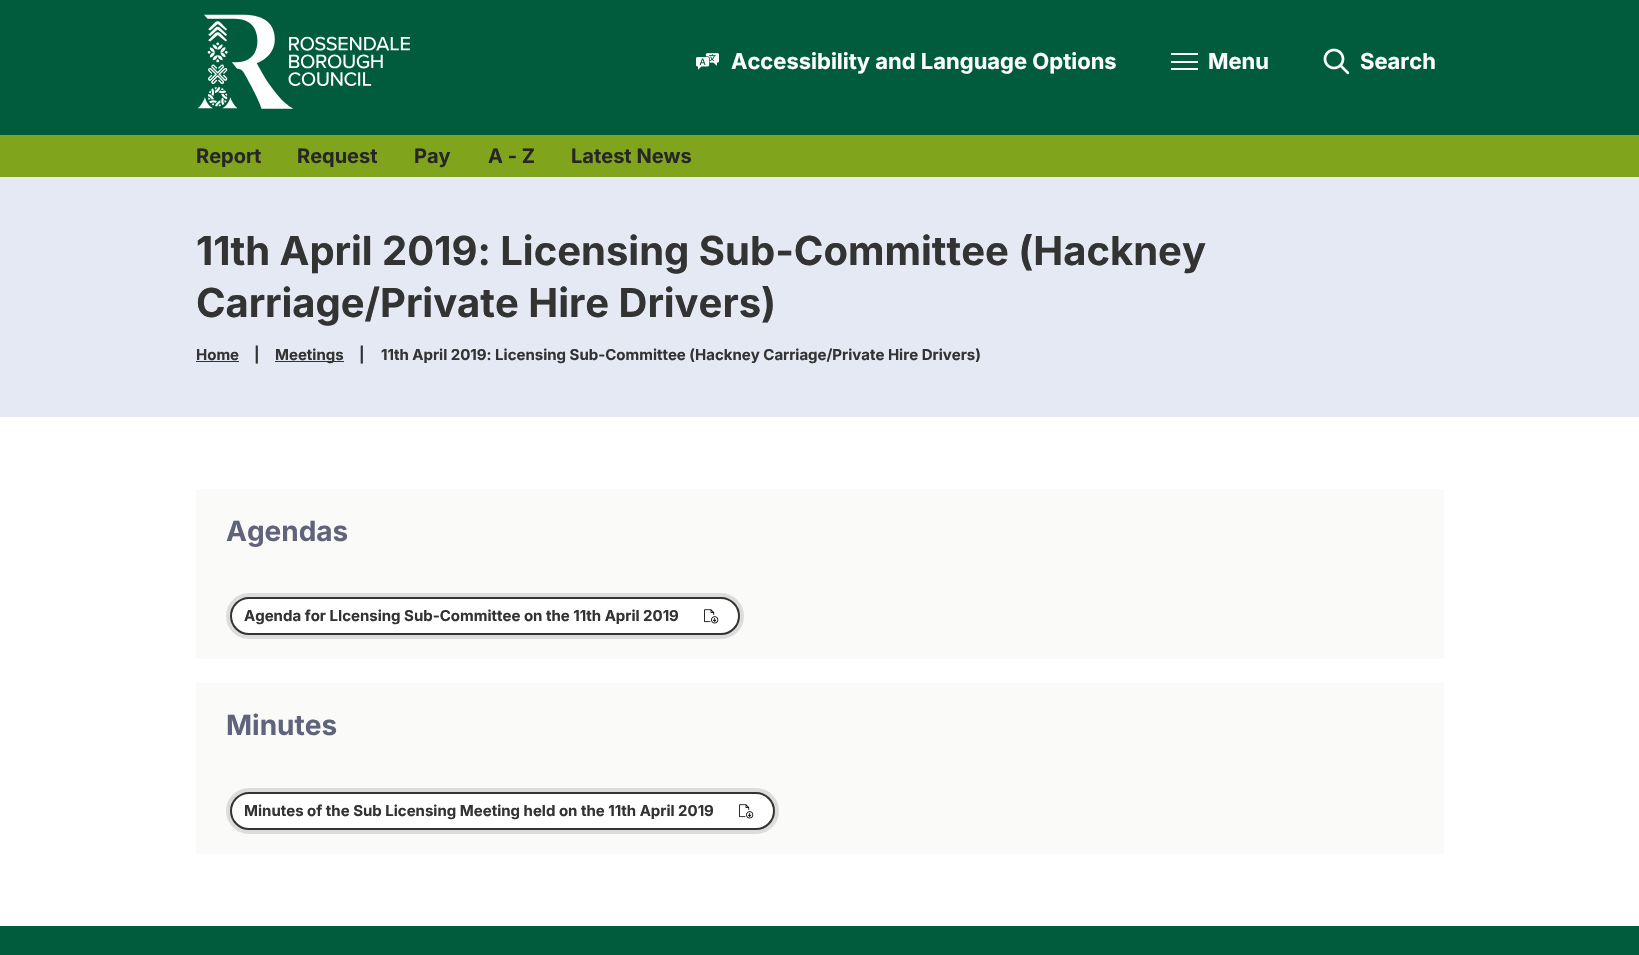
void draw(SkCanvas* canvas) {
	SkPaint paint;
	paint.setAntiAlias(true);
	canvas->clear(0xffffffff);
	paint.setColor(0xff005c3c);
	canvas->drawRect(SkRect::MakeXYWH(0, 0, 1639, 135), paint);
	canvas->drawImageRect(SkImages::DeferredFromEncodedData(SkData::MakeFromFileName("img1.png")), SkRect::MakeXYWH(198, 14, 212, 95), SkSamplingOptions());
	canvas->drawImageRect(SkImages::DeferredFromEncodedData(SkData::MakeFromFileName("img2.png")), SkRect::MakeXYWH(696, 53, 23, 17), SkSamplingOptions());
	SkFont f1(fontMgr->matchFamilyStyle("Inter", SkFontStyle::Bold()), 22);
	f1.setSubpixel(true);
	paint.setColor(0xffffffff);
	canvas->drawString("Accessibility and Language Options", 731, 69, f1, paint);
	canvas->drawRect(SkRect::MakeXYWH(1171, 53, 27, 2), paint);
	canvas->drawRect(SkRect::MakeXYWH(1171, 61, 27, 2), paint);
	canvas->drawRect(SkRect::MakeXYWH(1171, 68, 27, 2), paint);
	canvas->drawString("Menu", 1208, 69, f1, paint);
	canvas->drawImageRect(SkImages::DeferredFromEncodedData(SkData::MakeFromFileName("img3.png")), SkRect::MakeXYWH(1323, 48, 27, 27), SkSamplingOptions());
	canvas->drawString("Search", 1360, 69, f1, paint);
	paint.setColor(0xff80a41b);
	canvas->drawRect(SkRect::MakeXYWH(0, 135, 1639, 42), paint);
	SkFont f2(fontMgr->matchFamilyStyle("Inter", SkFontStyle::Bold()), 20);
	f2.setSubpixel(true);
	paint.setColor(0xff262626);
	canvas->drawString("Report", 196, 163, f2, paint);
	canvas->drawString("Request", 297, 163, f2, paint);
	canvas->drawString("Pay", 414, 163, f2, paint);
	canvas->drawString("A - Z", 488, 163, f2, paint);
	canvas->drawString("Latest News", 571, 163, f2, paint);
	paint.setColor(0xffe4e9f4);
	canvas->drawRect(SkRect::MakeXYWH(0, 177, 1639, 240), paint);
	SkFont f3(fontMgr->matchFamilyStyle("Inter", SkFontStyle::Bold()), 40);
	f3.setSubpixel(true);
	paint.setColor(0xff333333);
	canvas->drawString("11th April 2019: Licensing Sub-Committee (Hackney", 196, 265, f3, paint);
	canvas->drawString("Carriage/Private Hire Drivers)", 196, 317, f3, paint);
	SkFont f4(fontMgr->matchFamilyStyle("Inter", SkFontStyle::Bold()), 15);
	f4.setSubpixel(true);
	canvas->drawString("Home", 196, 360, f4, paint);
	canvas->drawRect(SkRect::MakeXYWH(196, 361, 43, 1), paint);
	canvas->drawString("|", 254, 360, f4, paint);
	canvas->drawRect(SkRect::MakeXYWH(275, 361, 69, 1), paint);
	canvas->drawString("Meetings", 275, 360, f4, paint);
	canvas->drawString("|", 359, 360, f4, paint);
	canvas->drawString("11th April 2019: Licensing Sub-Committee (Hackney Carriage/Private Hire Drivers)", 381, 360, f4, paint);
	paint.setColor(0xfffafaf8);
	canvas->drawRect(SkRect::MakeXYWH(196, 489, 1248, 170), paint);
	SkFont f5(fontMgr->matchFamilyStyle("Inter", SkFontStyle::Bold()), 28);
	f5.setSubpixel(true);
	paint.setColor(0xff5f647c);
	canvas->drawString("Agendas", 226, 541, f5, paint);
	paint.setColor(0xffffffff);
	canvas->drawRoundRect(SkRect::MakeXYWH(231, 598, 508, 36), 18, 18, paint);
	paint.setStroke(true);
	paint.setStrokeWidth(2);
	paint.setColor(0xff333333);
	canvas->drawRoundRect(SkRect::MakeXYWH(231, 598, 508, 36), 18, 18, paint);
	canvas->drawImageRect(SkImages::DeferredFromEncodedData(SkData::MakeFromFileName("img4.png")), SkRect::MakeXYWH(704, 609, 15, 15), SkSamplingOptions());
	paint.setStrokeWidth(6);
	paint.setColor(0x26333333);
	canvas->drawRoundRect(SkRect::MakeXYWH(229, 596, 512, 40), 20, 20, paint);
	paint.setStroke(false);
	paint.setColor(0xff333333);
	canvas->drawString("Agenda for LIcensing Sub-Committee on the 11th April 2019", 244, 621, f4, paint);
	paint.setColor(0xfffafaf8);
	canvas->drawRect(SkRect::MakeXYWH(196, 683, 1248, 171), paint);
	paint.setColor(0xff5f647c);
	canvas->drawString("Minutes", 226, 735, f5, paint);
	paint.setColor(0xffffffff);
	canvas->drawRoundRect(SkRect::MakeXYWH(231, 793, 543, 36), 18, 18, paint);
	paint.setStroke(true);
	paint.setStrokeWidth(2);
	paint.setColor(0xff333333);
	canvas->drawRoundRect(SkRect::MakeXYWH(231, 793, 543, 36), 18, 18, paint);
	canvas->drawImageRect(SkImages::DeferredFromEncodedData(SkData::MakeFromFileName("img4.png")), SkRect::MakeXYWH(739, 804, 15, 15), SkSamplingOptions());
	paint.setStrokeWidth(6);
	paint.setColor(0x26333333);
	canvas->drawRoundRect(SkRect::MakeXYWH(229, 791, 547, 40), 20, 20, paint);
	paint.setStroke(false);
	paint.setColor(0xff333333);
	canvas->drawString("Minutes of the Sub Licensing Meeting held on the 11th April 2019", 244, 816, f4, paint);
	paint.setColor(0xff005c3c);
	canvas->drawRect(SkRect::MakeXYWH(0, 926, 1639, 29), paint);
}
